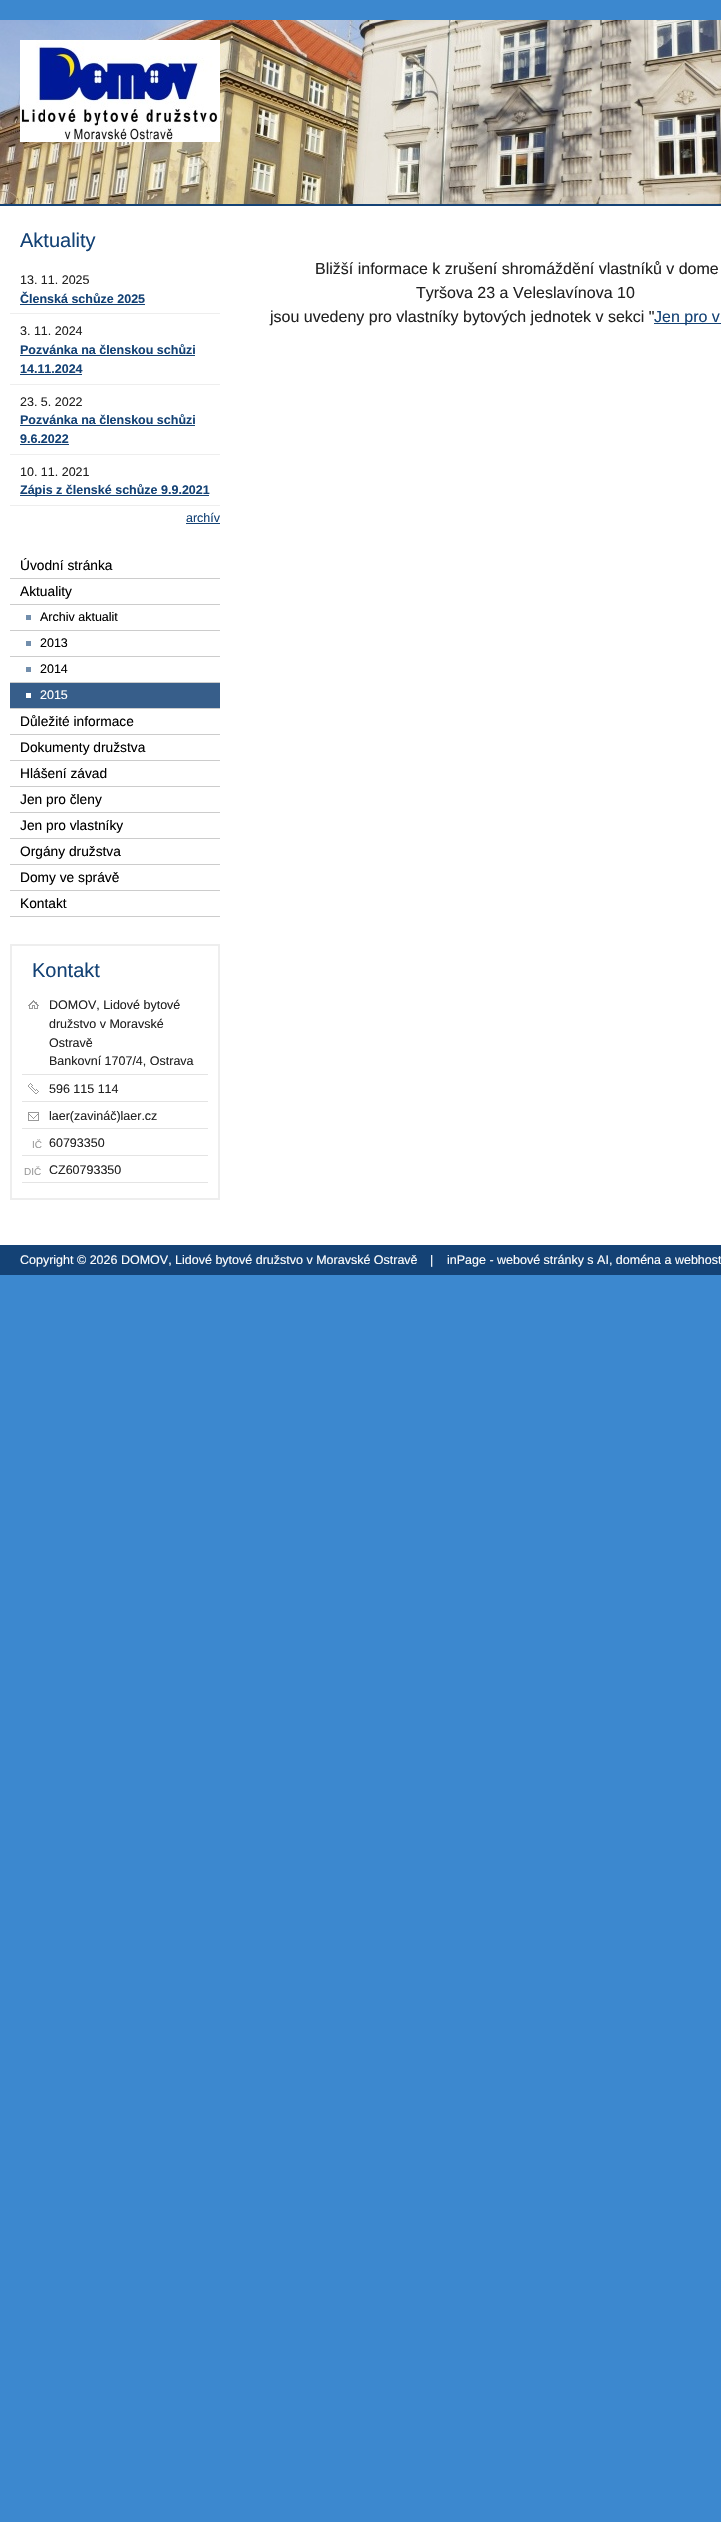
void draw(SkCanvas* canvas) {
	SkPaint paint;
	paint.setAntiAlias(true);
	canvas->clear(0xff3c88cf);
	paint.setColor(0xffffffff);
	canvas->drawRect(SkRect::MakeXYWH(0, 206, 721, 1039), paint);
	canvas->drawImageRect(SkImages::DeferredFromEncodedData(SkData::MakeFromFileName("img1.png")), SkRect::MakeXYWH(0, 20, 721, 184), SkSamplingOptions());
	paint.setColor(0xff144275);
	canvas->drawRect(SkRect::MakeXYWH(0, 204, 721, 2), paint);
	canvas->drawImageRect(SkImages::DeferredFromEncodedData(SkData::MakeFromFileName("img2.png")), SkRect::MakeXYWH(20, 40, 200, 102), SkSamplingOptions());
	SkFont f1(fontMgr->matchFamilyStyle("Liberation Sans", SkFontStyle::Normal()), 20);
	f1.setSubpixel(true);
	canvas->drawString("Aktuality", 20, 247, f1, paint);
	paint.setColor(0xffeeeeee);
	canvas->drawRect(SkRect::MakeXYWH(10, 313, 210, 1), paint);
	SkFont f2(fontMgr->matchFamilyStyle("Liberation Sans", SkFontStyle::Normal()), 12.5);
	f2.setSubpixel(true);
	paint.setColor(0xff222222);
	canvas->drawString("13. 11. 2025", 20, 284, f2, paint);
	SkFont f3(fontMgr->matchFamilyStyle("Liberation Sans", SkFontStyle::Bold()), 12.5);
	f3.setSubpixel(true);
	paint.setColor(0xff144275);
	canvas->drawString("Členská schůze 2025", 20, 303, f3, paint);
	canvas->drawRect(SkRect::MakeXYWH(20, 304, 125, 1), paint);
	paint.setColor(0xffeeeeee);
	canvas->drawRect(SkRect::MakeXYWH(10, 384, 210, 1), paint);
	paint.setColor(0xff222222);
	canvas->drawString("3. 11. 2024", 20, 335, f2, paint);
	paint.setColor(0xff144275);
	canvas->drawString("Pozvánka na členskou schůzi", 20, 354, f3, paint);
	canvas->drawRect(SkRect::MakeXYWH(20, 355, 175, 1), paint);
	canvas->drawString("14.11.2024", 20, 373, f3, paint);
	canvas->drawRect(SkRect::MakeXYWH(20, 374, 62, 1), paint);
	paint.setColor(0xffeeeeee);
	canvas->drawRect(SkRect::MakeXYWH(10, 454, 210, 1), paint);
	paint.setColor(0xff222222);
	canvas->drawString("23. 5. 2022", 20, 406, f2, paint);
	paint.setColor(0xff144275);
	canvas->drawString("Pozvánka na členskou schůzi", 20, 424, f3, paint);
	canvas->drawRect(SkRect::MakeXYWH(20, 425, 175, 1), paint);
	canvas->drawString("9.6.2022", 20, 443, f3, paint);
	canvas->drawRect(SkRect::MakeXYWH(20, 444, 49, 1), paint);
	paint.setColor(0xffeeeeee);
	canvas->drawRect(SkRect::MakeXYWH(10, 505, 210, 1), paint);
	paint.setColor(0xff222222);
	canvas->drawString("10. 11. 2021", 20, 476, f2, paint);
	paint.setColor(0xff144275);
	canvas->drawRect(SkRect::MakeXYWH(20, 495, 189, 1), paint);
	canvas->drawString("Zápis z členské schůze 9.9.2021", 20, 494, f3, paint);
	canvas->drawString("archív", 186, 522, f2, paint);
	canvas->drawRect(SkRect::MakeXYWH(186, 523, 34, 1), paint);
	paint.setColor(0xffcccccc);
	canvas->drawRect(SkRect::MakeXYWH(10, 578, 210, 1), paint);
	SkFont f4(fontMgr->matchFamilyStyle("Liberation Sans", SkFontStyle::Normal()), 13.75);
	f4.setSubpixel(true);
	paint.setColor(0xff000000);
	canvas->drawString("Úvodní stránka", 20, 570, f4, paint);
	paint.setColor(0xffcccccc);
	canvas->drawRect(SkRect::MakeXYWH(10, 708, 210, 1), paint);
	paint.setColor(0xff000000);
	canvas->drawString("Aktuality", 20, 596, f4, paint);
	paint.setColor(0xffcccccc);
	canvas->drawRect(SkRect::MakeXYWH(10, 604, 210, 1), paint);
	paint.setColor(0xff728eac);
	canvas->drawRect(SkRect::MakeXYWH(26, 615, 5, 5), paint);
	paint.setColor(0xff000000);
	canvas->drawString("Archiv aktualit", 40, 621, f2, paint);
	paint.setColor(0xffcccccc);
	canvas->drawRect(SkRect::MakeXYWH(10, 630, 210, 1), paint);
	paint.setColor(0xff728eac);
	canvas->drawRect(SkRect::MakeXYWH(26, 641, 5, 5), paint);
	paint.setColor(0xff000000);
	canvas->drawString("2013", 40, 647, f2, paint);
	paint.setColor(0xffcccccc);
	canvas->drawRect(SkRect::MakeXYWH(10, 656, 210, 1), paint);
	paint.setColor(0xff728eac);
	canvas->drawRect(SkRect::MakeXYWH(26, 667, 5, 5), paint);
	paint.setColor(0xff000000);
	canvas->drawString("2014", 40, 673, f2, paint);
	paint.setColor(0xffcccccc);
	canvas->drawRect(SkRect::MakeXYWH(10, 682, 210, 1), paint);
	paint.setColor(0xff375e8a);
	canvas->drawRect(SkRect::MakeXYWH(10, 683, 210, 25), paint);
	paint.setColor(0xffffffff);
	canvas->drawRect(SkRect::MakeXYWH(26, 693, 5, 5), paint);
	canvas->drawString("2015", 40, 699, f2, paint);
	paint.setColor(0xffcccccc);
	canvas->drawRect(SkRect::MakeXYWH(10, 734, 210, 1), paint);
	paint.setColor(0xff000000);
	canvas->drawString("Důležité informace", 20, 726, f4, paint);
	paint.setColor(0xffcccccc);
	canvas->drawRect(SkRect::MakeXYWH(10, 760, 210, 1), paint);
	paint.setColor(0xff000000);
	canvas->drawString("Dokumenty družstva", 20, 752, f4, paint);
	paint.setColor(0xffcccccc);
	canvas->drawRect(SkRect::MakeXYWH(10, 786, 210, 1), paint);
	paint.setColor(0xff000000);
	canvas->drawString("Hlášení závad", 20, 778, f4, paint);
	paint.setColor(0xffcccccc);
	canvas->drawRect(SkRect::MakeXYWH(10, 812, 210, 1), paint);
	paint.setColor(0xff000000);
	canvas->drawString("Jen pro členy", 20, 804, f4, paint);
	paint.setColor(0xffcccccc);
	canvas->drawRect(SkRect::MakeXYWH(10, 838, 210, 1), paint);
	paint.setColor(0xff000000);
	canvas->drawString("Jen pro vlastníky", 20, 830, f4, paint);
	paint.setColor(0xffcccccc);
	canvas->drawRect(SkRect::MakeXYWH(10, 864, 210, 1), paint);
	paint.setColor(0xff000000);
	canvas->drawString("Orgány družstva", 20, 856, f4, paint);
	paint.setColor(0xffcccccc);
	canvas->drawRect(SkRect::MakeXYWH(10, 890, 210, 1), paint);
	paint.setColor(0xff000000);
	canvas->drawString("Domy ve správě", 20, 882, f4, paint);
	paint.setColor(0xffcccccc);
	canvas->drawRect(SkRect::MakeXYWH(10, 916, 210, 1), paint);
	paint.setColor(0xff000000);
	canvas->drawString("Kontakt", 20, 908, f4, paint);
	paint.setStroke(true);
	paint.setStrokeWidth(2);
	paint.setColor(0xffeeeeee);
	canvas->drawRect(SkRect::MakeXYWH(11, 945, 208, 254), paint);
	paint.setStroke(false);
	paint.setColor(0xff144275);
	canvas->drawString("Kontakt", 32, 977, f1, paint);
	canvas->drawImageRect(SkImages::DeferredFromEncodedData(SkData::MakeFromFileName("img3.png")), SkRect::MakeXYWH(28, 1000, 11, 9), SkSamplingOptions());
	paint.setColor(0xffe4e4e4);
	canvas->drawRect(SkRect::MakeXYWH(22, 1074, 186, 1), paint);
	paint.setColor(0xff222222);
	canvas->drawString("DOMOV, Lidové bytové", 49, 1009, f2, paint);
	canvas->drawString("družstvo v Moravské", 49, 1028, f2, paint);
	canvas->drawString("Ostravě", 49, 1047, f2, paint);
	canvas->drawString("Bankovní 1707/4, Ostrava", 49, 1065, f2, paint);
	canvas->drawImageRect(SkImages::DeferredFromEncodedData(SkData::MakeFromFileName("img4.png")), SkRect::MakeXYWH(28, 1083, 11, 11), SkSamplingOptions());
	paint.setColor(0xffe4e4e4);
	canvas->drawRect(SkRect::MakeXYWH(22, 1101, 186, 1), paint);
	paint.setColor(0xff222222);
	canvas->drawString("596 115 114", 49, 1093, f2, paint);
	canvas->drawImageRect(SkImages::DeferredFromEncodedData(SkData::MakeFromFileName("img5.png")), SkRect::MakeXYWH(28, 1112, 11, 9), SkSamplingOptions());
	paint.setColor(0xffe4e4e4);
	canvas->drawRect(SkRect::MakeXYWH(22, 1128, 186, 1), paint);
	paint.setColor(0xff222222);
	canvas->drawString("laer(zavináč)laer.cz", 49, 1120, f2, paint);
	paint.setColor(0xffe4e4e4);
	canvas->drawRect(SkRect::MakeXYWH(22, 1155, 186, 1), paint);
	SkFont f5(fontMgr->matchFamilyStyle("Liberation Sans", SkFontStyle::Normal()), 10);
	f5.setSubpixel(true);
	paint.setColor(0xff999999);
	canvas->drawString("IČ", 32, 1148, f5, paint);
	paint.setColor(0xff222222);
	canvas->drawString("60793350", 49, 1147, f2, paint);
	paint.setColor(0xffe4e4e4);
	canvas->drawRect(SkRect::MakeXYWH(22, 1182, 186, 1), paint);
	paint.setColor(0xff999999);
	canvas->drawString("DIČ", 24, 1175, f5, paint);
	paint.setColor(0xff222222);
	canvas->drawString("CZ60793350", 49, 1174, f2, paint);
	SkFont f6(fontMgr->matchFamilyStyle("Liberation Sans", SkFontStyle::Normal()), 16);
	f6.setSubpixel(true);
	canvas->drawString("Bližší informace k zrušení shromáždění vlastníků v dome", 315, 274, f6, paint);
	canvas->drawString("Tyršova 23 a Veleslavínova 10", 416, 298, f6, paint);
	canvas->drawString("jsou uvedeny pro vlastníky bytových jednotek v sekci \"", 270, 322, f6, paint);
	paint.setColor(0xff144275);
	canvas->drawRect(SkRect::MakeXYWH(654, 323, 67, 1), paint);
	canvas->drawString("Jen pro v", 654, 322, f6, paint);
	canvas->drawRect(SkRect::MakeXYWH(0, 1245, 721, 30), paint);
	paint.setColor(0xffffffff);
	canvas->drawString("Copyright © 2026 DOMOV, Lidové bytové družstvo v Moravské Ostravě", 20, 1264, f2, paint);
	canvas->drawString("|", 430, 1264, f2, paint);
	canvas->drawString("inPage - webové stránky s AI, doména a webhost", 447, 1264, f2, paint);
}
